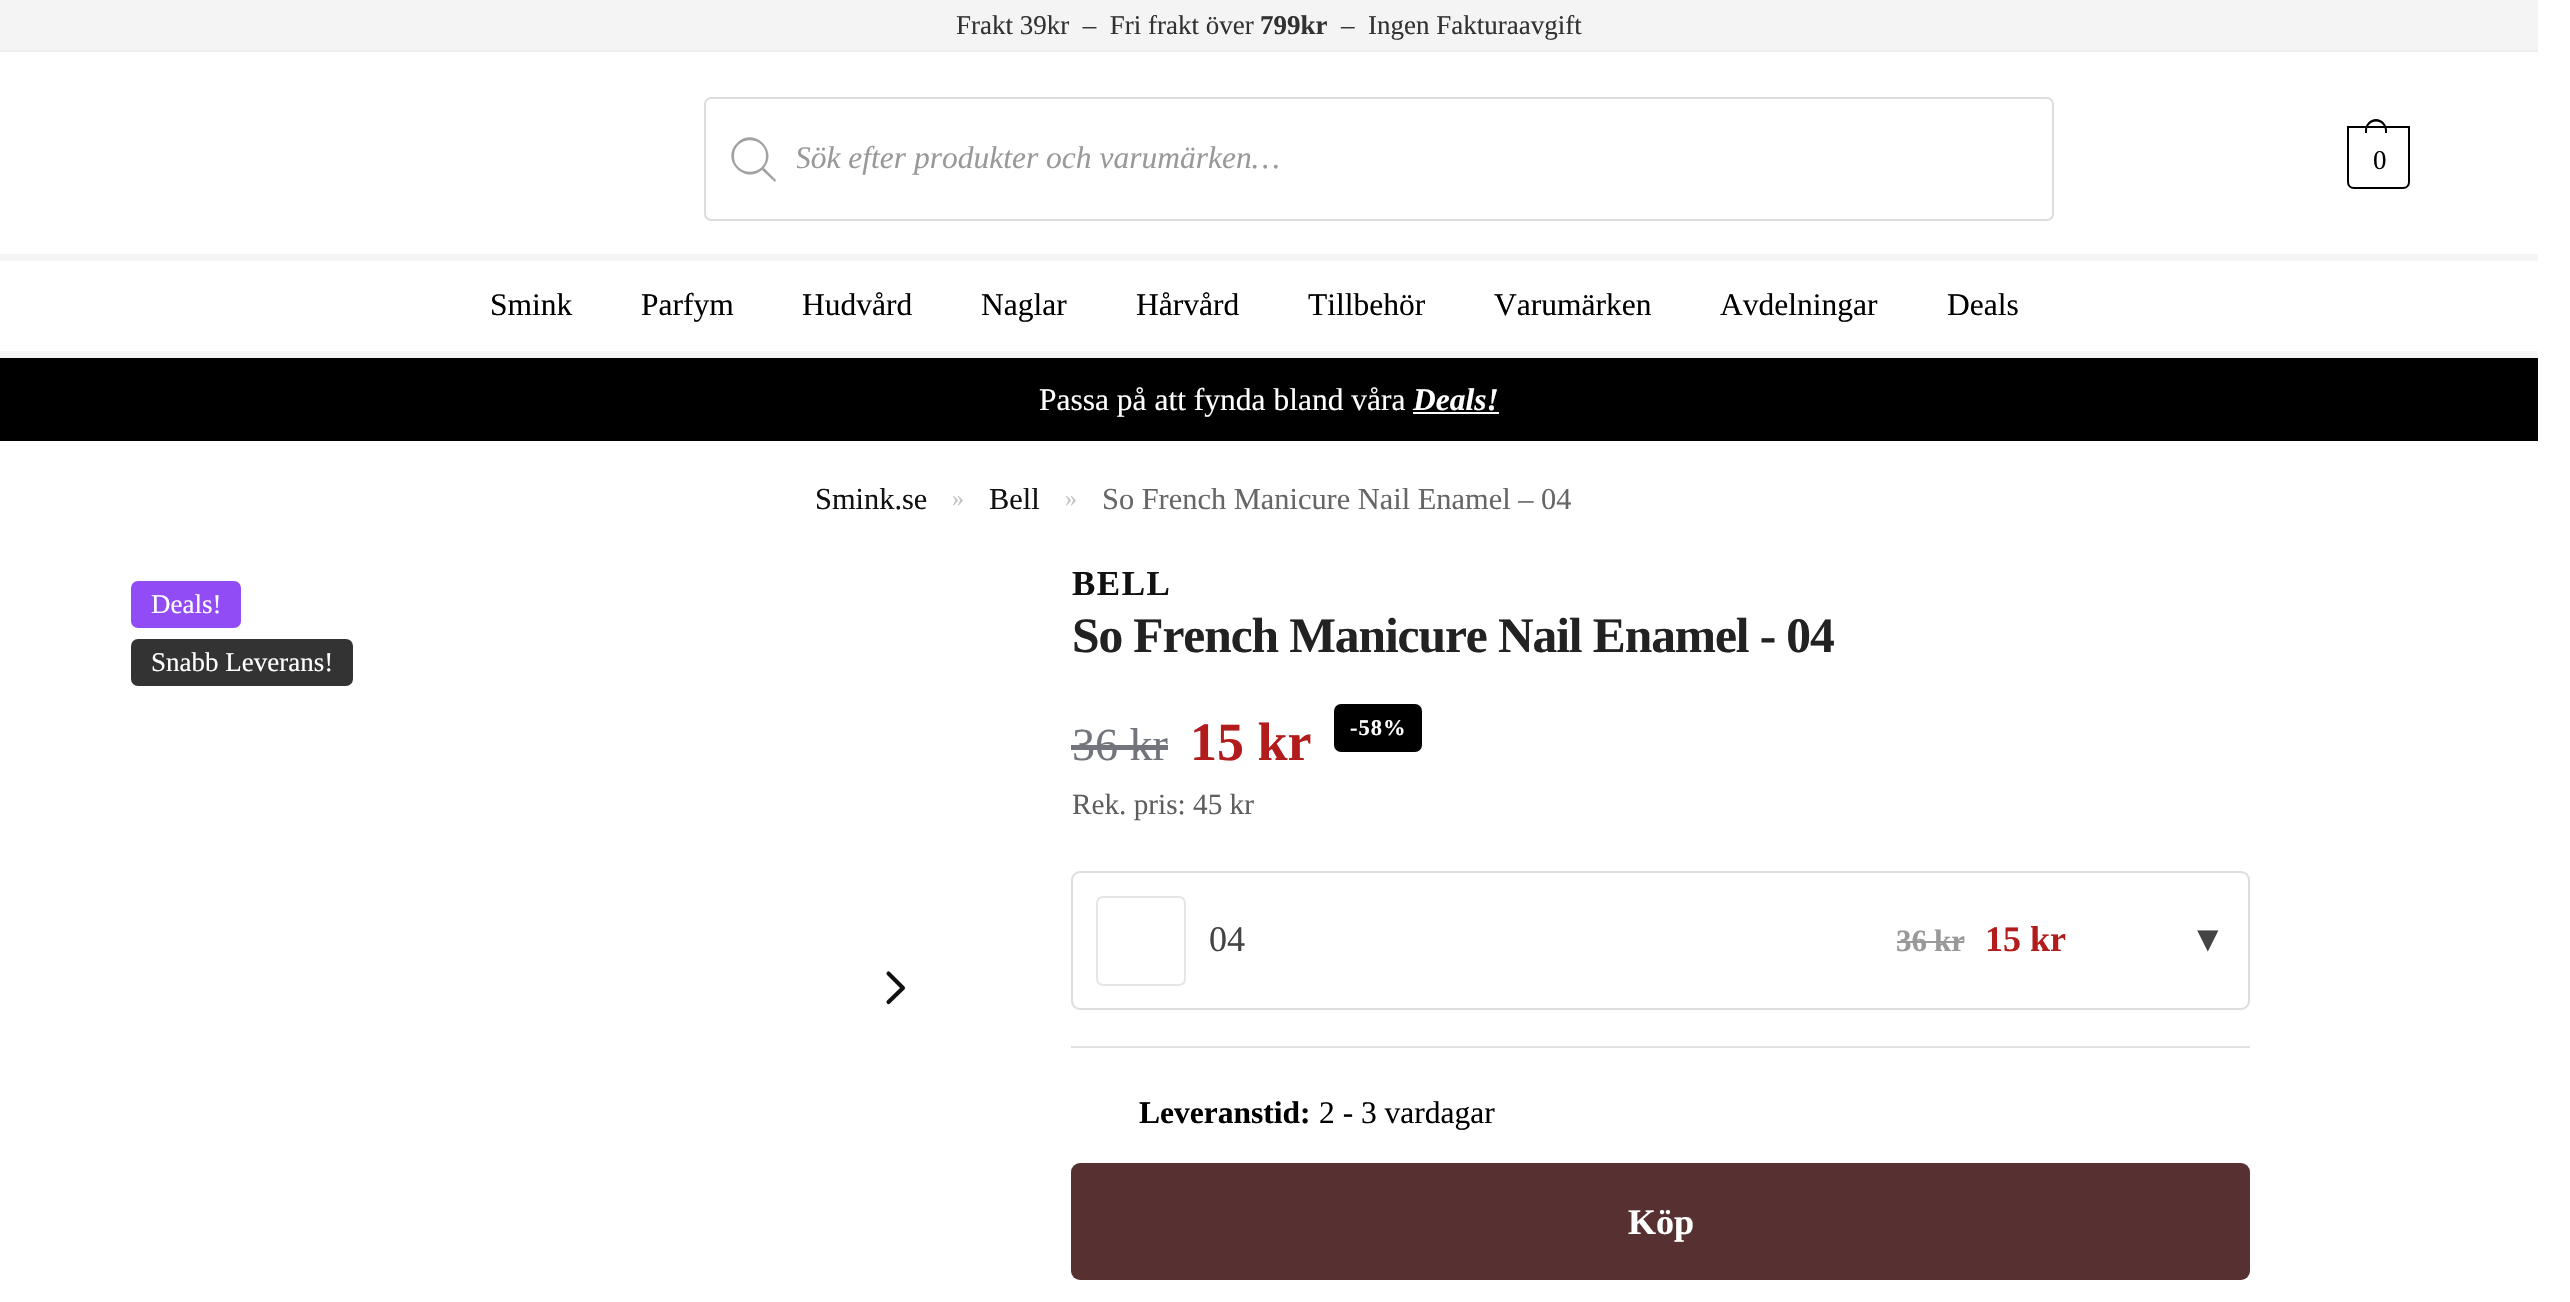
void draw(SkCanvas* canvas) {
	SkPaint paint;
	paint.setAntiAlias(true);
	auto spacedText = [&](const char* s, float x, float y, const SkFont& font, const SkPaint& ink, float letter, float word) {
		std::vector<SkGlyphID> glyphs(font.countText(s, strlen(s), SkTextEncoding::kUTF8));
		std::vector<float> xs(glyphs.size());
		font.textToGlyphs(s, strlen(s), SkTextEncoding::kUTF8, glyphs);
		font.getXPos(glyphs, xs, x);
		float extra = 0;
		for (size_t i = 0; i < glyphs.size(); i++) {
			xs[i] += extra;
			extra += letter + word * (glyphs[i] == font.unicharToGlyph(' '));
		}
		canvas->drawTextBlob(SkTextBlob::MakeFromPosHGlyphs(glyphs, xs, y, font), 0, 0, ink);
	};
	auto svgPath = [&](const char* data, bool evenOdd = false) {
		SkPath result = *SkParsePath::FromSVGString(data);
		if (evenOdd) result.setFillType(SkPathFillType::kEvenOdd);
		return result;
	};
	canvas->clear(0xffffffff);
	paint.setColor(0xfff4f4f4);
	canvas->drawRect(SkRect::MakeXYWH(0, 0, 2538, 50), paint);
	paint.setColor(0xffeeeeee);
	canvas->drawRect(SkRect::MakeXYWH(0, 50, 2538, 2), paint);
	SkFont f1(fontMgr->matchFamilyStyle("Liberation Serif", SkFontStyle::Normal()), 27);
	f1.setSubpixel(true);
	paint.setColor(0xff323232);
	canvas->drawString("Frakt 39kr  –  Fri frakt över", 956, 34, f1, paint);
	SkFont f2(fontMgr->matchFamilyStyle("Liberation Serif", SkFontStyle::Bold()), 27);
	f2.setSubpixel(true);
	canvas->drawString("799kr", 1260, 34, f2, paint);
	canvas->drawString("–  Ingen Fakturaavgift", 1341, 34, f1, paint);
	paint.setStroke(true);
	paint.setStrokeWidth(2);
	paint.setColor(0xffdddddd);
	canvas->drawRoundRect(SkRect::MakeXYWH(705, 98, 1348, 122), 6, 6, paint);
	paint.setStroke(false);
	paint.setColor(0xffa2a2a2);
	canvas->drawPath(svgPath("M776 180L764 168C779 151 754 126 737 143C720 160 745 185 762 170L775 182ZM734 156C734 135 766 135 766 156C766 177 734 177 734 156Z"), paint);
	canvas->save();
	canvas->clipRect(SkRect::MakeXYWH(797, 142, 1221, 36));
	SkFont f3(fontMgr->matchFamilyStyle("Liberation Serif", SkFontStyle::Italic()), 31.5);
	f3.setSubpixel(true);
	paint.setColor(0xff999999);
	canvas->drawString("Sök efter produkter och varumärken…", 795, 168, f3, paint);
	canvas->restore();
	paint.setStroke(true);
	paint.setColor(0xff000000);
	canvas->drawPath(svgPath("M2348 127H2409V182C2409 185.5 2406.5 188 2403 188H2354C2350.5 188 2348 185.5 2348 182Z"), paint);
	paint.setStroke(false);
	canvas->drawPath(svgPath("M2376 119C2382 119 2387 124.5 2387 130.5V133H2365V130.5C2365 124.5 2370 119 2376 119ZM2376 121.5C2381 121.5 2385 125.5 2385 130.5V133H2367V130.5C2367 125.5 2371 121.5 2376 121.5Z", true), paint);
	spacedText("0", 2373, 169, f1, paint, -2, 0);
	paint.setColor(0xfff5f5f5);
	canvas->drawRect(SkRect::MakeXYWH(0, 254, 2538, 7), paint);
	canvas->drawRect(SkRect::MakeXYWH(0, 351, 2538, 7), paint);
	SkFont f4(fontMgr->matchFamilyStyle("Liberation Serif", SkFontStyle::Normal()), 31.5);
	f4.setSubpixel(true);
	paint.setColor(0xff000000);
	canvas->drawString("Smink", 490, 315, f4, paint);
	canvas->drawString("Parfym", 641, 315, f4, paint);
	canvas->drawString("Hudvård", 802, 315, f4, paint);
	canvas->drawString("Naglar", 981, 315, f4, paint);
	canvas->drawString("Hårvård", 1136, 315, f4, paint);
	canvas->drawString("Tillbehör", 1308, 315, f4, paint);
	canvas->drawString("Varumärken", 1494, 315, f4, paint);
	canvas->drawString("Avdelningar", 1720, 315, f4, paint);
	canvas->drawString("Deals", 1947, 315, f4, paint);
	canvas->drawRect(SkRect::MakeXYWH(0, 358, 2538, 83), paint);
	paint.setColor(0xffffffff);
	canvas->drawString("Passa på att fynda bland våra", 1039, 410, f4, paint);
	SkFont f5(fontMgr->matchFamilyStyle("Liberation Serif", SkFontStyle::BoldItalic()), 31.5);
	f5.setSubpixel(true);
	canvas->drawString("Deals!", 1413, 410, f5, paint);
	canvas->drawRect(SkRect::MakeXYWH(1413, 412, 86, 2), paint);
	SkFont f6(fontMgr->matchFamilyStyle("Liberation Serif", SkFontStyle::Normal()), 30.4);
	f6.setSubpixel(true);
	paint.setColor(0xff111111);
	canvas->drawString("Smink.se", 815, 509, f6, paint);
	SkFont f7(fontMgr->matchFamilyStyle("Liberation Serif", SkFontStyle::Normal()), 24);
	f7.setSubpixel(true);
	paint.setColor(0xffc2c2c2);
	canvas->drawString("»", 952, 506, f7, paint);
	paint.setColor(0xff111111);
	canvas->drawString("Bell", 989, 509, f6, paint);
	paint.setColor(0xffc2c2c2);
	canvas->drawString("»", 1065, 506, f7, paint);
	paint.setColor(0xff666666);
	canvas->drawString("So French Manicure Nail Enamel – 04", 1102, 509, f6, paint);
	paint.setColor(0xff914cf6);
	canvas->drawRoundRect(SkRect::MakeXYWH(131, 581, 110, 47), 7, 7, paint);
	paint.setColor(0xffffffff);
	canvas->drawString("Deals!", 151, 613, f1, paint);
	paint.setColor(0xff333333);
	canvas->drawRoundRect(SkRect::MakeXYWH(131, 639, 222, 47), 7, 7, paint);
	paint.setColor(0xffffffff);
	canvas->drawString("Snabb Leverans!", 151, 671, f1, paint);
	paint.setStroke(true);
	paint.setStrokeWidth(4.1);
	paint.setStrokeCap(SkPaint::kRound_Cap);
	paint.setStrokeJoin(SkPaint::kRound_Join);
	paint.setColor(0xff111111);
	canvas->drawPath(svgPath("M888.5 1002L903 988L888.5 973.5"), paint);
	SkFont f8(fontMgr->matchFamilyStyle("Liberation Serif", SkFontStyle::Bold()), 35);
	f8.setSubpixel(true);
	paint.setStroke(false);
	spacedText("BELL", 1072, 595, f8, paint, 1.5, 0);
	SkFont f9(fontMgr->matchFamilyStyle("Liberation Serif", SkFontStyle::Bold()), 49.5);
	f9.setSubpixel(true);
	paint.setColor(0xff222222);
	spacedText("So French Manicure Nail Enamel - 04", 1072, 652, f9, paint, -1.1, 0);
	SkFont f10(fontMgr->matchFamilyStyle("Liberation Serif", SkFontStyle::Normal()), 46);
	f10.setSubpixel(true);
	paint.setColor(0xff72767c);
	canvas->drawString("36 kr", 1072, 760, f10, paint);
	canvas->drawRect(SkRect::MakeXYWH(1071, 745, 97, 5), paint);
	SkFont f11(fontMgr->matchFamilyStyle("Liberation Serif", SkFontStyle::Bold()), 54);
	f11.setSubpixel(true);
	paint.setColor(0xffb31c1c);
	canvas->drawString("15 kr", 1190, 760, f11, paint);
	paint.setColor(0xff000000);
	canvas->drawRoundRect(SkRect::MakeXYWH(1334, 704, 88, 48), 7, 7, paint);
	SkFont f12(fontMgr->matchFamilyStyle("Liberation Serif", SkFontStyle::Bold()), 22.5);
	f12.setSubpixel(true);
	paint.setColor(0xffffffff);
	spacedText("-58%", 1350, 735, f12, paint, 1, 0);
	SkFont f13(fontMgr->matchFamilyStyle("Liberation Serif", SkFontStyle::Normal()), 29.25);
	f13.setSubpixel(true);
	paint.setColor(0xff5e5e5e);
	canvas->drawString("Rek. pris: 45 kr", 1072, 814, f13, paint);
	paint.setStroke(true);
	paint.setStrokeWidth(2);
	paint.setStrokeCap(SkPaint::kButt_Cap);
	paint.setStrokeJoin(SkPaint::kMiter_Join);
	paint.setColor(0xffdddddd);
	canvas->drawRoundRect(SkRect::MakeXYWH(1072, 872, 1177, 137), 8, 8, paint);
	paint.setColor(0xffe6e6e6);
	canvas->drawRoundRect(SkRect::MakeXYWH(1097, 897, 88, 88), 6, 6, paint);
	SkFont f14(fontMgr->matchFamilyStyle("Liberation Serif", SkFontStyle::Normal()), 36);
	f14.setSubpixel(true);
	paint.setStroke(false);
	paint.setColor(0xff444444);
	canvas->drawString("04", 1209, 951, f14, paint);
	SkFont f15(fontMgr->matchFamilyStyle("Liberation Serif", SkFontStyle::Bold()), 31);
	f15.setSubpixel(true);
	paint.setColor(0xff999999);
	canvas->drawString("36", 1896, 951, f15, paint);
	canvas->drawRect(SkRect::MakeXYWH(1897, 941, 38, 2), paint);
	canvas->drawString("kr", 1934, 951, f15, paint);
	canvas->drawRect(SkRect::MakeXYWH(1935, 941, 29, 2), paint);
	SkFont f16(fontMgr->matchFamilyStyle("Liberation Serif", SkFontStyle::Bold()), 36);
	f16.setSubpixel(true);
	paint.setColor(0xffb31c1c);
	canvas->drawString("15 kr", 1985, 951, f16, paint);
	paint.setColor(0xff444444);
	canvas->drawString("▼", 2190, 951, f14, paint);
	paint.setColor(0xffe2e2e2);
	canvas->drawRect(SkRect::MakeXYWH(1071, 1046, 1179, 2), paint);
	SkFont f17(fontMgr->matchFamilyStyle("Liberation Serif", SkFontStyle::Bold()), 31.5);
	f17.setSubpixel(true);
	paint.setColor(0xff000000);
	canvas->drawString("Leveranstid:", 1139, 1123, f17, paint);
	canvas->drawString("2 - 3 vardagar", 1319, 1123, f4, paint);
	paint.setColor(0xff573131);
	canvas->drawRoundRect(SkRect::MakeXYWH(1071, 1163, 1179, 117), 9, 9, paint);
	paint.setColor(0xffffffff);
	canvas->drawString("Köp", 1628, 1234, f16, paint);
}
